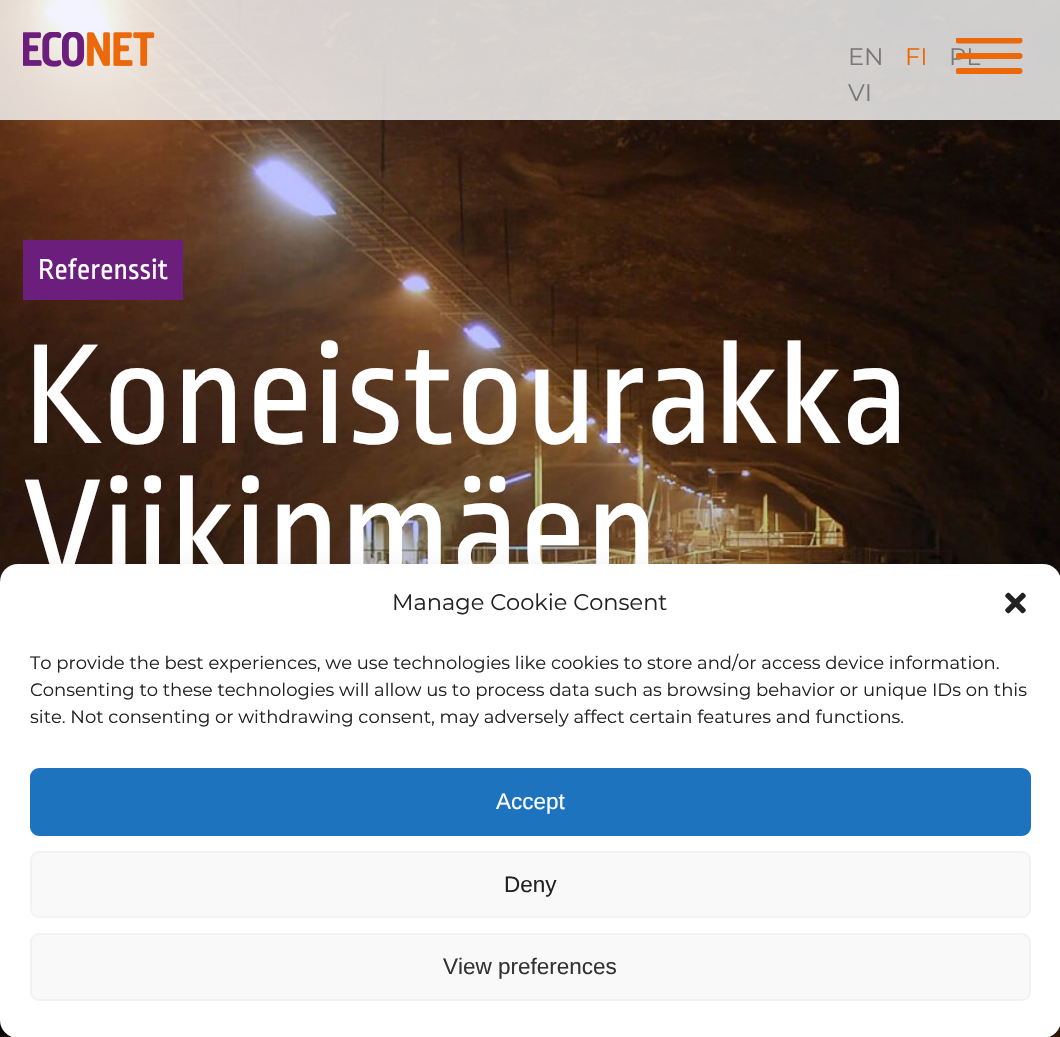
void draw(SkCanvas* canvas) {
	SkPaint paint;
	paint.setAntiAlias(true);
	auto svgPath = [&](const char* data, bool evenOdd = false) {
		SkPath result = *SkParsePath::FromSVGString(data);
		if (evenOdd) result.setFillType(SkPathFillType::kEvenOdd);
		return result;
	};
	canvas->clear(0xffffffff);
	canvas->drawImageRect(SkImages::DeferredFromEncodedData(SkData::MakeFromFileName("img2.png")), SkRect::MakeXYWH(0, 0, 1060, 1037), SkSamplingOptions());
	paint.setColor(0xccffffff);
	canvas->drawRect(SkRect::MakeXYWH(0, 0, 1060, 120), paint);
	canvas->drawImageRect(SkImages::DeferredFromEncodedData(SkData::MakeFromFileName("img1.png")), SkRect::MakeXYWH(23, 32, 132, 35), SkSamplingOptions());
	SkFont f1(fontMgr->matchFamilyStyle("Montserrat", SkFontStyle::Normal()), 24);
	f1.setSubpixel(true);
	paint.setColor(0xff787878);
	canvas->drawString("EN", 848, 65, f1, paint);
	paint.setColor(0xffeb690b);
	canvas->drawString("FI", 905, 65, f1, paint);
	paint.setColor(0xff787878);
	canvas->drawString("PL", 949, 65, f1, paint);
	canvas->drawString("VI", 848, 101, f1, paint);
	canvas->save();
	canvas->clipRect(SkRect::MakeXYWH(956, 38, 67, 36));
	paint.setStroke(true);
	paint.setStrokeWidth(6.1);
	paint.setStrokeCap(SkPaint::kRound_Cap);
	paint.setColor(0xffeb690b);
	canvas->drawPath(svgPath("M1019.5 40.5H958.5"), paint);
	canvas->drawPath(svgPath("M1019.5 56H958.5"), paint);
	canvas->drawPath(svgPath("M1019.5 71H958.5"), paint);
	canvas->restore();
	paint.setStroke(false);
	paint.setColor(0xff6b1e7b);
	canvas->drawRect(SkRect::MakeXYWH(23, 240, 160, 60), paint);
	SkFont f2(fontMgr->matchFamilyStyle("Ropa Sans", SkFontStyle::Normal()), 30);
	f2.setSubpixel(true);
	paint.setColor(0xffffffff);
	canvas->drawString("Referenssit", 38, 279, f2, paint);
	SkFont f3(fontMgr->matchFamilyStyle("Ropa Sans", SkFontStyle::Normal()), 150);
	f3.setSubpixel(true);
	canvas->drawString("Koneistourakka", 23, 443, f3, paint);
	canvas->drawString("Viikinmäen", 23, 578, f3, paint);
	paint.setColor(0x3b000000);
	paint.setMaskFilter(SkMaskFilter::MakeBlur(kNormal_SkBlurStyle, 4.5));
	canvas->drawRoundRect(SkRect::MakeXYWH(0, 573, 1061, 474), 18, 18, paint);
	paint.setMaskFilter(nullptr);
	paint.setColor(0x30000000);
	paint.setMaskFilter(SkMaskFilter::MakeBlur(kNormal_SkBlurStyle, 15));
	canvas->drawRoundRect(SkRect::MakeXYWH(0, 579, 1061, 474), 18, 18, paint);
	paint.setMaskFilter(nullptr);
	paint.setColor(0xffffffff);
	canvas->drawRoundRect(SkRect::MakeXYWH(0, 564, 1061, 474), 18, 18, paint);
	SkFont f4(fontMgr->matchFamilyStyle("Montserrat", SkFontStyle::Normal()), 22.5);
	f4.setSubpixel(true);
	paint.setColor(0xff222222);
	canvas->drawString("Manage Cookie Consent", 392, 610, f4, paint);
	canvas->drawImageRect(SkImages::DeferredFromEncodedData(SkData::MakeFromFileName("img3.png")), SkRect::MakeXYWH(1005, 592, 21, 22), SkSamplingOptions());
	SkFont f5(fontMgr->matchFamilyStyle("Montserrat", SkFontStyle::Normal()), 18);
	f5.setSubpixel(true);
	canvas->drawString("To provide the best experiences, we use technologies like cookies to store and/or access device information.", 30, 669, f5, paint);
	canvas->drawString("Consenting to these technologies will allow us to process data such as browsing behavior or unique IDs on this", 30, 696, f5, paint);
	canvas->drawString("site. Not consenting or withdrawing consent, may adversely affect certain features and functions.", 30, 723, f5, paint);
	paint.setColor(0xff1e73be);
	canvas->drawRoundRect(SkRect::MakeXYWH(31, 769, 999, 66), 8, 8, paint);
	paint.setStroke(true);
	paint.setStrokeWidth(2);
	paint.setStrokeCap(SkPaint::kButt_Cap);
	canvas->drawRoundRect(SkRect::MakeXYWH(31, 769, 999, 66), 8, 8, paint);
	SkFont f6(fontMgr->matchFamilyStyle("Liberation Sans", SkFontStyle::Normal()), 22.5);
	f6.setSubpixel(true);
	paint.setStroke(false);
	paint.setColor(0xffffffff);
	canvas->drawString("Accept", 496, 809, f6, paint);
	paint.setColor(0xfff9f9f9);
	canvas->drawRoundRect(SkRect::MakeXYWH(31, 852, 999, 65), 8, 8, paint);
	paint.setStroke(true);
	paint.setColor(0xfff2f2f2);
	canvas->drawRoundRect(SkRect::MakeXYWH(31, 852, 999, 65), 8, 8, paint);
	paint.setStroke(false);
	paint.setColor(0xff222222);
	canvas->drawString("Deny", 504, 892, f6, paint);
	paint.setColor(0xfff9f9f9);
	canvas->drawRoundRect(SkRect::MakeXYWH(31, 934, 999, 66), 8, 8, paint);
	paint.setStroke(true);
	paint.setColor(0xfff2f2f2);
	canvas->drawRoundRect(SkRect::MakeXYWH(31, 934, 999, 66), 8, 8, paint);
	paint.setStroke(false);
	paint.setColor(0xff333333);
	canvas->drawString("View preferences", 443, 974, f6, paint);
}
